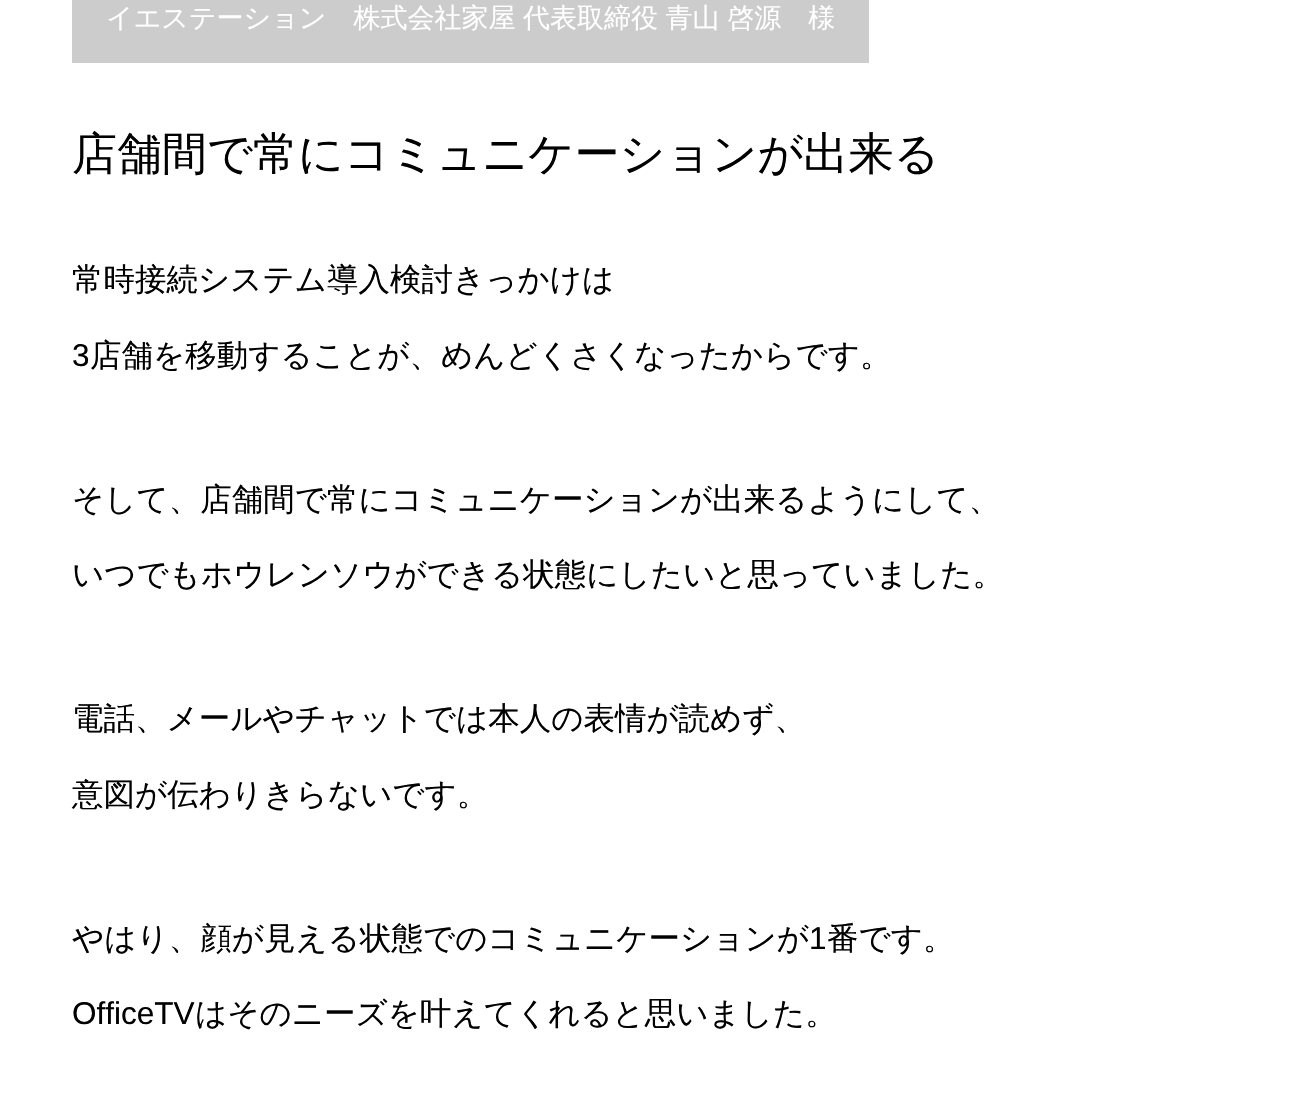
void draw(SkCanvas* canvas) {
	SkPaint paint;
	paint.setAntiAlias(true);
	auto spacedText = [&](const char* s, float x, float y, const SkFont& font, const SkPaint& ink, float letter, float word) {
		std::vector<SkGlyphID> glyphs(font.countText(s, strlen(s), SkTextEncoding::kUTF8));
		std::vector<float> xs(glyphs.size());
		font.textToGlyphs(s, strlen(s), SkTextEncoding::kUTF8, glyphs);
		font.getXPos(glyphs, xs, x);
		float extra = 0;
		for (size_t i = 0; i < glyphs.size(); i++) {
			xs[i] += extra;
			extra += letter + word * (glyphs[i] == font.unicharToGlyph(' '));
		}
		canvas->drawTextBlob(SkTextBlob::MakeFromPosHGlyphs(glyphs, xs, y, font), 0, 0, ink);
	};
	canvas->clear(0xffffffff);
	paint.setColor(0xffcccccc);
	canvas->drawRect(SkRect::MakeXYWH(72, 0, 797, 63), paint);
	SkFont f1(fontMgr->matchFamilyStyle("WenQuanYi Zen Hei", SkFontStyle(500, SkFontStyle::kNormal_Width, SkFontStyle::kUpright_Slant)), 27);
	f1.setSubpixel(true);
	paint.setColor(0xffffffff);
	spacedText("イエステーション　株式会社家屋 代表取締役 青山 啓源　様", 106, 27, f1, paint, 0, -0.5);
	SkFont f2(fontMgr->matchFamilyStyle("WenQuanYi Zen Hei", SkFontStyle(500, SkFontStyle::kNormal_Width, SkFontStyle::kUpright_Slant)), 45);
	f2.setSubpixel(true);
	paint.setColor(0xff000000);
	canvas->drawString("店舗間で常にコミュニケーションが出来る", 72, 169, f2, paint);
	SkFont f3(fontMgr->matchFamilyStyle("WenQuanYi Zen Hei", SkFontStyle(500, SkFontStyle::kNormal_Width, SkFontStyle::kUpright_Slant)), 31.5);
	f3.setSubpixel(true);
	canvas->drawString("常時接続システム導入検討きっかけは", 72, 290, f3, paint);
	SkFont f4(fontMgr->matchFamilyStyle("Liberation Sans", SkFontStyle::Normal()), 31.5);
	f4.setSubpixel(true);
	canvas->drawString("3", 72, 366, f4, paint);
	canvas->drawString("店舗を移動することが、めんどくさくなったからです。", 90, 366, f3, paint);
	canvas->drawString("そして、店舗間で常にコミュニケーションが出来るようにして、", 72, 510, f3, paint);
	canvas->drawString("いつでもホウレンソウができる状態にしたいと思っていました。", 72, 585, f3, paint);
	canvas->drawString("電話、メールやチャットでは本人の表情が読めず、", 72, 729, f3, paint);
	canvas->drawString("意図が伝わりきらないです。", 72, 805, f3, paint);
	canvas->drawString("やはり、顔が見える状態でのコミュニケーションが", 72, 949, f3, paint);
	canvas->drawString("1", 809, 949, f4, paint);
	canvas->drawString("番です。", 827, 949, f3, paint);
	canvas->drawString("OfficeTV", 72, 1024, f4, paint);
	canvas->drawString("はそのニーズを叶えてくれると思いました。", 195, 1024, f3, paint);
}
